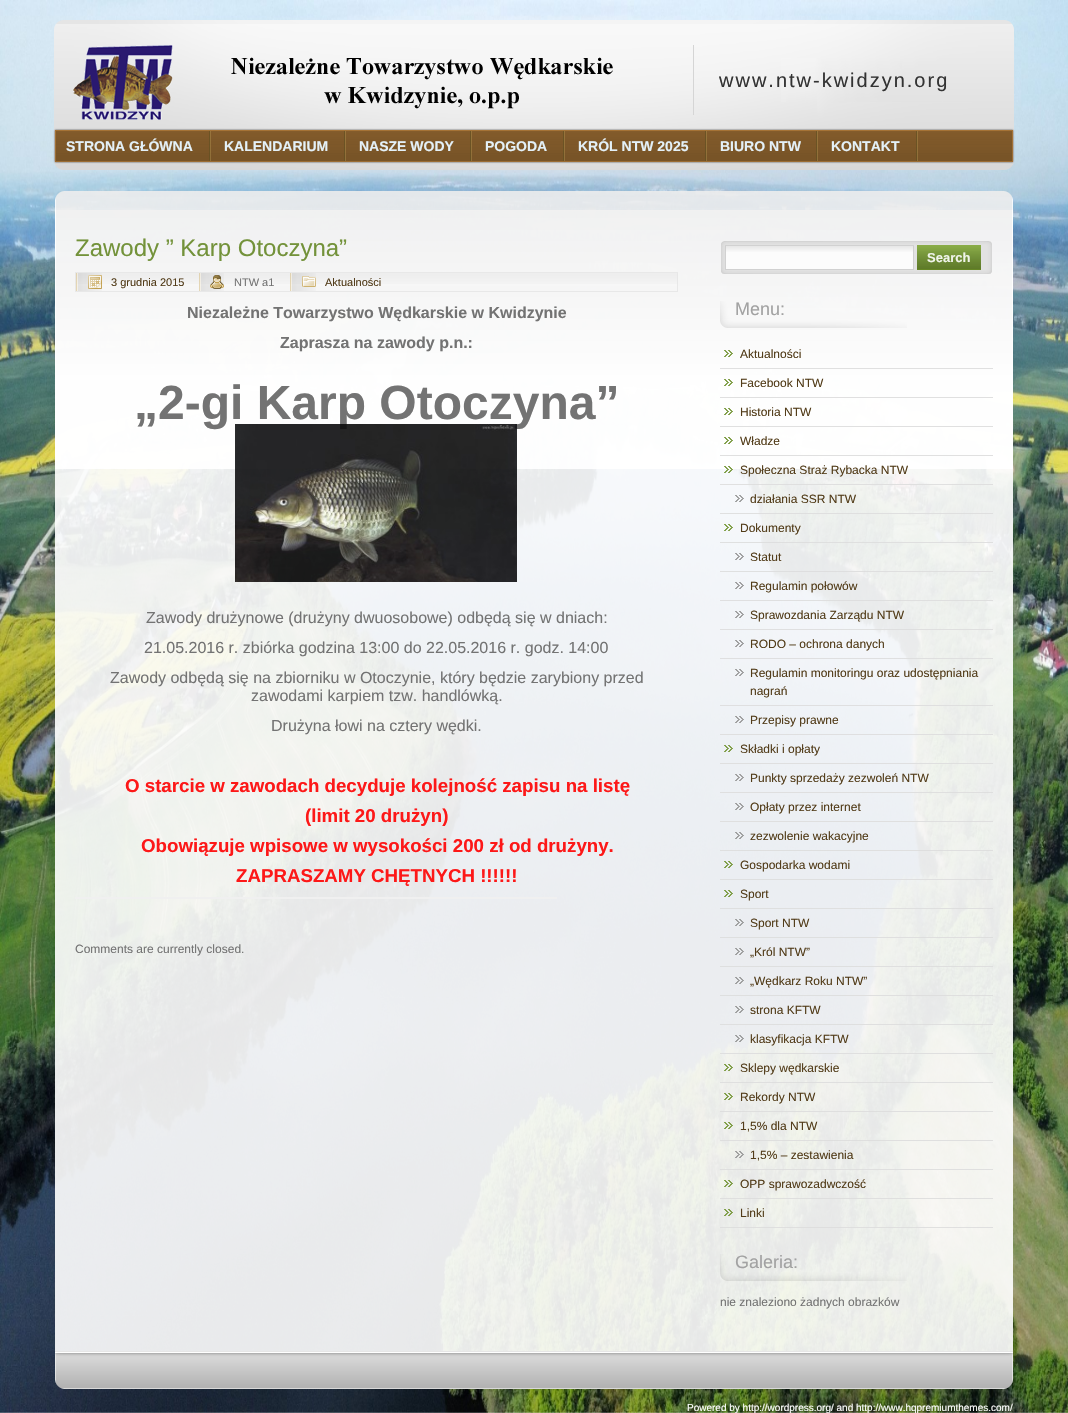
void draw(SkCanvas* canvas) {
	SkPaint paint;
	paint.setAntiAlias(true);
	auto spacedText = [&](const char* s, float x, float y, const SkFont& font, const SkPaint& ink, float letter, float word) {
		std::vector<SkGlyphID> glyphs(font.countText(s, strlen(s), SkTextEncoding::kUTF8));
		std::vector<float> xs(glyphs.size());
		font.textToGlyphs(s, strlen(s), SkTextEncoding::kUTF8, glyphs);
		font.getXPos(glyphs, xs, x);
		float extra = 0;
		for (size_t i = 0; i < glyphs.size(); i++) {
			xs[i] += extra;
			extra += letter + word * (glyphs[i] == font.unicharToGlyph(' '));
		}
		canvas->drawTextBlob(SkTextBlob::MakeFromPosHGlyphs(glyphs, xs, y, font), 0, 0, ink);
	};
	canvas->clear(0xffffffff);
	canvas->drawImageRect(SkImages::DeferredFromEncodedData(SkData::MakeFromFileName("img1.png")), SkRect::MakeXYWH(0, 0, 1068, 1413), SkSamplingOptions());
	canvas->drawImageRect(SkImages::DeferredFromEncodedData(SkData::MakeFromFileName("img2.png")), SkRect::MakeXYWH(54, 20, 960, 150), SkSamplingOptions());
	paint.setColor(0xffd5d5d5);
	canvas->drawRect(SkRect::MakeXYWH(693, 45, 1, 70), paint);
	canvas->drawImageRect(SkImages::DeferredFromEncodedData(SkData::MakeFromFileName("img3.png")), SkRect::MakeXYWH(73, 45, 540, 75), SkSamplingOptions());
	SkFont f1(fontMgr->matchFamilyStyle("Liberation Sans", SkFontStyle::Normal()), 20);
	f1.setSubpixel(true);
	paint.setColor(0xff333333);
	spacedText("www.ntw-kwidzyn.org", 719, 87, f1, paint, 2, 0);
	canvas->drawImageRect(SkImages::DeferredFromEncodedData(SkData::MakeFromFileName("img4.png")), SkRect::MakeXYWH(53, 128, 962, 36), SkSamplingOptions());
	canvas->drawImageRect(SkImages::DeferredFromEncodedData(SkData::MakeFromFileName("img5.png")), SkRect::MakeXYWH(209, 131, 2, 30), SkSamplingOptions());
	SkFont f2(fontMgr->matchFamilyStyle("Liberation Sans", SkFontStyle::Bold()), 14);
	f2.setSubpixel(true);
	paint.setColor(0xffe4f1f8);
	canvas->drawString("STRONA GŁÓWNA", 66, 151, f2, paint);
	canvas->drawImageRect(SkImages::DeferredFromEncodedData(SkData::MakeFromFileName("img5.png")), SkRect::MakeXYWH(344, 131, 2, 30), SkSamplingOptions());
	canvas->drawString("KALENDARIUM", 224, 151, f2, paint);
	canvas->drawImageRect(SkImages::DeferredFromEncodedData(SkData::MakeFromFileName("img5.png")), SkRect::MakeXYWH(470, 131, 2, 30), SkSamplingOptions());
	canvas->drawString("NASZE WODY", 359, 151, f2, paint);
	canvas->drawImageRect(SkImages::DeferredFromEncodedData(SkData::MakeFromFileName("img5.png")), SkRect::MakeXYWH(563, 131, 2, 30), SkSamplingOptions());
	canvas->drawString("POGODA", 485, 151, f2, paint);
	canvas->drawImageRect(SkImages::DeferredFromEncodedData(SkData::MakeFromFileName("img5.png")), SkRect::MakeXYWH(705, 131, 2, 30), SkSamplingOptions());
	canvas->drawString("KRÓL NTW 2025", 578, 151, f2, paint);
	canvas->drawImageRect(SkImages::DeferredFromEncodedData(SkData::MakeFromFileName("img5.png")), SkRect::MakeXYWH(816, 131, 2, 30), SkSamplingOptions());
	canvas->drawString("BIURO NTW", 720, 151, f2, paint);
	canvas->drawImageRect(SkImages::DeferredFromEncodedData(SkData::MakeFromFileName("img5.png")), SkRect::MakeXYWH(916, 131, 2, 30), SkSamplingOptions());
	canvas->drawString("KONTAKT", 831, 151, f2, paint);
	canvas->drawImageRect(SkImages::DeferredFromEncodedData(SkData::MakeFromFileName("img6.png")), SkRect::MakeXYWH(55, 191, 958, 20), SkSamplingOptions());
	paint.setColor(0xe6ffffff);
	canvas->drawRect(SkRect::MakeXYWH(55, 210, 958, 1141), paint);
	canvas->drawImageRect(SkImages::DeferredFromEncodedData(SkData::MakeFromFileName("img7.png")), SkRect::MakeXYWH(55, 210, 958, 259), SkSamplingOptions());
	SkFont f3(fontMgr->matchFamilyStyle("Liberation Sans", SkFontStyle::Normal()), 24);
	f3.setSubpixel(true);
	paint.setColor(0xff73923a);
	canvas->drawString("Zawody ” Karp Otoczyna”", 75, 256, f3, paint);
	paint.setColor(0xfff7f7f7);
	canvas->drawRect(SkRect::MakeXYWH(75, 272, 603, 14), paint);
	canvas->drawImageRect(SkImages::DeferredFromEncodedData(SkData::MakeFromFileName("img8.png")), SkRect::MakeXYWH(75, 273, 603, 11), SkSamplingOptions());
	paint.setStroke(true);
	paint.setStrokeWidth(1);
	paint.setColor(0xe6e6e6e6);
	canvas->drawRect(SkRect::MakeXYWH(75.5, 272.5, 602, 19), paint);
	canvas->drawImageRect(SkImages::DeferredFromEncodedData(SkData::MakeFromFileName("img9.png")), SkRect::MakeXYWH(76, 273, 26, 18), SkSamplingOptions());
	SkFont f4(fontMgr->matchFamilyStyle("Liberation Sans", SkFontStyle::Normal()), 11);
	f4.setSubpixel(true);
	paint.setStroke(false);
	paint.setColor(0xff523c19);
	canvas->drawString("3 grudnia 2015", 111, 286, f4, paint);
	canvas->drawImageRect(SkImages::DeferredFromEncodedData(SkData::MakeFromFileName("img10.png")), SkRect::MakeXYWH(199, 273, 25, 18), SkSamplingOptions());
	paint.setColor(0xff737373);
	canvas->drawString("NTW a1", 234, 286, f4, paint);
	canvas->drawImageRect(SkImages::DeferredFromEncodedData(SkData::MakeFromFileName("img11.png")), SkRect::MakeXYWH(290, 273, 26, 18), SkSamplingOptions());
	paint.setColor(0xff523c19);
	canvas->drawString("Aktualności", 325, 286, f4, paint);
	SkFont f5(fontMgr->matchFamilyStyle("Liberation Sans", SkFontStyle::Bold()), 16);
	f5.setSubpixel(true);
	paint.setColor(0xff737373);
	canvas->drawString("Niezależne Towarzystwo Wędkarskie w Kwidzynie", 187, 318, f5, paint);
	canvas->drawString("Zaprasza na zawody p.n.:", 280, 348, f5, paint);
	SkFont f6(fontMgr->matchFamilyStyle("Liberation Sans", SkFontStyle::Bold()), 48);
	f6.setSubpixel(true);
	canvas->drawString("„2-gi Karp Otoczyna”", 134, 419, f6, paint);
	canvas->drawImageRect(SkImages::DeferredFromEncodedData(SkData::MakeFromFileName("img12.png")), SkRect::MakeXYWH(235, 424, 282, 158), SkSamplingOptions());
	SkFont f7(fontMgr->matchFamilyStyle("Liberation Sans", SkFontStyle::Normal()), 16);
	f7.setSubpixel(true);
	canvas->drawString("Zawody drużynowe (drużyny dwuosobowe) odbędą się w dniach:", 146, 623, f7, paint);
	canvas->drawString("21.05.2016 r. zbiórka godzina 13:00 do 22.05.2016 r. godz. 14:00", 144, 653, f7, paint);
	canvas->drawString("Zawody odbędą się na zbiorniku w Otoczynie, który będzie zarybiony przed", 110, 683, f7, paint);
	canvas->drawString("zawodami karpiem tzw. handlówką.", 251, 701, f7, paint);
	canvas->drawString("Drużyna łowi na cztery wędki.", 271, 731, f7, paint);
	SkFont f8(fontMgr->matchFamilyStyle("Liberation Sans", SkFontStyle::Bold()), 18.7);
	f8.setSubpixel(true);
	paint.setColor(0xfffd1818);
	canvas->drawString("O starcie w zawodach decyduje kolejność zapisu na listę", 125, 792, f8, paint);
	canvas->drawString("(limit 20 drużyn)", 305, 822, f8, paint);
	canvas->drawString("Obowiązuje wpisowe w wysokości 200 zł od drużyny.", 141, 852, f8, paint);
	canvas->drawString("ZAPRASZAMY CHĘTNYCH !!!!!!", 236, 882, f8, paint);
	paint.setColor(0xfff0f0f0);
	canvas->drawRect(SkRect::MakeXYWH(75, 897, 482, 2), paint);
	SkFont f9(fontMgr->matchFamilyStyle("Liberation Sans", SkFontStyle::Normal()), 12);
	f9.setSubpixel(true);
	paint.setColor(0xff737373);
	canvas->drawString("Comments are currently closed.", 75, 953, f9, paint);
	canvas->drawImageRect(SkImages::DeferredFromEncodedData(SkData::MakeFromFileName("img13.png")), SkRect::MakeXYWH(721, 241, 271, 33), SkSamplingOptions());
	paint.setColor(0xfffcfcfc);
	canvas->drawRect(SkRect::MakeXYWH(725, 245, 189, 25), paint);
	canvas->drawImageRect(SkImages::DeferredFromEncodedData(SkData::MakeFromFileName("img14.png")), SkRect::MakeXYWH(725, 246, 189, 6), SkSamplingOptions());
	paint.setStroke(true);
	paint.setColor(0xe6cccccc);
	canvas->drawRect(SkRect::MakeXYWH(725.5, 245.5, 188, 24), paint);
	canvas->drawImageRect(SkImages::DeferredFromEncodedData(SkData::MakeFromFileName("img15.png")), SkRect::MakeXYWH(917, 245, 64, 25), SkSamplingOptions());
	SkFont f10(fontMgr->matchFamilyStyle("Liberation Sans", SkFontStyle::Bold()), 13);
	f10.setSubpixel(true);
	paint.setStroke(false);
	paint.setColor(0xfff0f4ea);
	canvas->drawString("Search", 927, 262, f10, paint);
	canvas->drawImageRect(SkImages::DeferredFromEncodedData(SkData::MakeFromFileName("img16.png")), SkRect::MakeXYWH(720, 301, 187, 27), SkSamplingOptions());
	SkFont f11(fontMgr->matchFamilyStyle("Liberation Sans", SkFontStyle::Normal()), 18);
	f11.setSubpixel(true);
	paint.setColor(0xffa2a2a2);
	canvas->drawString("Menu:", 735, 315, f11, paint);
	canvas->drawImageRect(SkImages::DeferredFromEncodedData(SkData::MakeFromFileName("img17.png")), SkRect::MakeXYWH(724, 350, 9, 7), SkSamplingOptions());
	paint.setColor(0xffe0e0e0);
	canvas->drawRect(SkRect::MakeXYWH(720, 368, 273, 1), paint);
	paint.setColor(0xff523c19);
	canvas->drawString("Aktualności", 740, 358, f9, paint);
	canvas->drawImageRect(SkImages::DeferredFromEncodedData(SkData::MakeFromFileName("img18.png")), SkRect::MakeXYWH(724, 379, 9, 7), SkSamplingOptions());
	paint.setColor(0xffe0e0e0);
	canvas->drawRect(SkRect::MakeXYWH(720, 397, 273, 1), paint);
	paint.setColor(0xff523c19);
	canvas->drawString("Facebook NTW", 740, 387, f9, paint);
	canvas->drawImageRect(SkImages::DeferredFromEncodedData(SkData::MakeFromFileName("img19.png")), SkRect::MakeXYWH(724, 408, 9, 7), SkSamplingOptions());
	paint.setColor(0xffe0e0e0);
	canvas->drawRect(SkRect::MakeXYWH(720, 426, 273, 1), paint);
	paint.setColor(0xff523c19);
	canvas->drawString("Historia NTW", 740, 416, f9, paint);
	canvas->drawImageRect(SkImages::DeferredFromEncodedData(SkData::MakeFromFileName("img20.png")), SkRect::MakeXYWH(724, 437, 9, 7), SkSamplingOptions());
	paint.setColor(0xffe0e0e0);
	canvas->drawRect(SkRect::MakeXYWH(720, 455, 273, 1), paint);
	paint.setColor(0xff523c19);
	canvas->drawString("Władze", 740, 445, f9, paint);
	canvas->drawImageRect(SkImages::DeferredFromEncodedData(SkData::MakeFromFileName("img21.png")), SkRect::MakeXYWH(724, 466, 9, 7), SkSamplingOptions());
	paint.setColor(0xe6dddddd);
	canvas->drawRect(SkRect::MakeXYWH(720, 484, 273, 1), paint);
	paint.setColor(0xff523c19);
	canvas->drawString("Społeczna Straż Rybacka NTW", 740, 474, f9, paint);
	canvas->drawImageRect(SkImages::DeferredFromEncodedData(SkData::MakeFromFileName("img22.png")), SkRect::MakeXYWH(735, 495, 9, 7), SkSamplingOptions());
	paint.setColor(0xe6dddddd);
	canvas->drawRect(SkRect::MakeXYWH(720, 513, 273, 1), paint);
	paint.setColor(0xff523c19);
	canvas->drawString("działania SSR NTW", 750, 503, f9, paint);
	canvas->drawImageRect(SkImages::DeferredFromEncodedData(SkData::MakeFromFileName("img23.png")), SkRect::MakeXYWH(724, 524, 9, 7), SkSamplingOptions());
	paint.setColor(0xe6dddddd);
	canvas->drawRect(SkRect::MakeXYWH(720, 542, 273, 1), paint);
	paint.setColor(0xff523c19);
	canvas->drawString("Dokumenty", 740, 532, f9, paint);
	canvas->drawImageRect(SkImages::DeferredFromEncodedData(SkData::MakeFromFileName("img24.png")), SkRect::MakeXYWH(735, 553, 9, 7), SkSamplingOptions());
	paint.setColor(0xe6dddddd);
	canvas->drawRect(SkRect::MakeXYWH(720, 571, 273, 1), paint);
	paint.setColor(0xff523c19);
	canvas->drawString("Statut", 750, 561, f9, paint);
	canvas->drawImageRect(SkImages::DeferredFromEncodedData(SkData::MakeFromFileName("img25.png")), SkRect::MakeXYWH(735, 582, 9, 7), SkSamplingOptions());
	paint.setColor(0xe6dddddd);
	canvas->drawRect(SkRect::MakeXYWH(720, 600, 273, 1), paint);
	paint.setColor(0xff523c19);
	canvas->drawString("Regulamin połowów", 750, 590, f9, paint);
	canvas->drawImageRect(SkImages::DeferredFromEncodedData(SkData::MakeFromFileName("img26.png")), SkRect::MakeXYWH(735, 611, 9, 7), SkSamplingOptions());
	paint.setColor(0xe6dddddd);
	canvas->drawRect(SkRect::MakeXYWH(720, 629, 273, 1), paint);
	paint.setColor(0xff523c19);
	canvas->drawString("Sprawozdania Zarządu NTW", 750, 619, f9, paint);
	canvas->drawImageRect(SkImages::DeferredFromEncodedData(SkData::MakeFromFileName("img27.png")), SkRect::MakeXYWH(735, 640, 9, 7), SkSamplingOptions());
	paint.setColor(0xe6dddddd);
	canvas->drawRect(SkRect::MakeXYWH(720, 658, 273, 1), paint);
	paint.setColor(0xff523c19);
	canvas->drawString("RODO – ochrona danych", 750, 648, f9, paint);
	canvas->drawImageRect(SkImages::DeferredFromEncodedData(SkData::MakeFromFileName("img28.png")), SkRect::MakeXYWH(735, 669, 9, 7), SkSamplingOptions());
	paint.setColor(0xe6dddddd);
	canvas->drawRect(SkRect::MakeXYWH(720, 705, 273, 1), paint);
	paint.setColor(0xff523c19);
	canvas->drawString("Regulamin monitoringu oraz udostępniania", 750, 677, f9, paint);
	canvas->drawString("nagrań", 750, 695, f9, paint);
	canvas->drawImageRect(SkImages::DeferredFromEncodedData(SkData::MakeFromFileName("img29.png")), SkRect::MakeXYWH(735, 716, 9, 7), SkSamplingOptions());
	paint.setColor(0xe6dddddd);
	canvas->drawRect(SkRect::MakeXYWH(720, 734, 273, 1), paint);
	paint.setColor(0xff523c19);
	canvas->drawString("Przepisy prawne", 750, 724, f9, paint);
	canvas->drawImageRect(SkImages::DeferredFromEncodedData(SkData::MakeFromFileName("img30.png")), SkRect::MakeXYWH(724, 745, 9, 7), SkSamplingOptions());
	paint.setColor(0xe6dddddd);
	canvas->drawRect(SkRect::MakeXYWH(720, 763, 273, 1), paint);
	paint.setColor(0xff523c19);
	canvas->drawString("Składki i opłaty", 740, 753, f9, paint);
	canvas->drawImageRect(SkImages::DeferredFromEncodedData(SkData::MakeFromFileName("img31.png")), SkRect::MakeXYWH(735, 774, 9, 7), SkSamplingOptions());
	paint.setColor(0xe6dddddd);
	canvas->drawRect(SkRect::MakeXYWH(720, 792, 273, 1), paint);
	paint.setColor(0xff523c19);
	canvas->drawString("Punkty sprzedaży zezwoleń NTW", 750, 782, f9, paint);
	canvas->drawImageRect(SkImages::DeferredFromEncodedData(SkData::MakeFromFileName("img32.png")), SkRect::MakeXYWH(735, 803, 9, 7), SkSamplingOptions());
	paint.setColor(0xe6dddddd);
	canvas->drawRect(SkRect::MakeXYWH(720, 821, 273, 1), paint);
	paint.setColor(0xff523c19);
	canvas->drawString("Opłaty przez internet", 750, 811, f9, paint);
	canvas->drawImageRect(SkImages::DeferredFromEncodedData(SkData::MakeFromFileName("img33.png")), SkRect::MakeXYWH(735, 832, 9, 7), SkSamplingOptions());
	paint.setColor(0xe6dddddd);
	canvas->drawRect(SkRect::MakeXYWH(720, 850, 273, 1), paint);
	paint.setColor(0xff523c19);
	canvas->drawString("zezwolenie wakacyjne", 750, 840, f9, paint);
	canvas->drawImageRect(SkImages::DeferredFromEncodedData(SkData::MakeFromFileName("img34.png")), SkRect::MakeXYWH(724, 861, 9, 7), SkSamplingOptions());
	paint.setColor(0xe6dddddd);
	canvas->drawRect(SkRect::MakeXYWH(720, 879, 273, 1), paint);
	paint.setColor(0xff523c19);
	canvas->drawString("Gospodarka wodami", 740, 869, f9, paint);
	canvas->drawImageRect(SkImages::DeferredFromEncodedData(SkData::MakeFromFileName("img35.png")), SkRect::MakeXYWH(724, 890, 9, 7), SkSamplingOptions());
	paint.setColor(0xe6dddddd);
	canvas->drawRect(SkRect::MakeXYWH(720, 908, 273, 1), paint);
	paint.setColor(0xff523c19);
	canvas->drawString("Sport", 740, 898, f9, paint);
	canvas->drawImageRect(SkImages::DeferredFromEncodedData(SkData::MakeFromFileName("img36.png")), SkRect::MakeXYWH(735, 919, 9, 7), SkSamplingOptions());
	paint.setColor(0xe6dddddd);
	canvas->drawRect(SkRect::MakeXYWH(720, 937, 273, 1), paint);
	paint.setColor(0xff523c19);
	canvas->drawString("Sport NTW", 750, 927, f9, paint);
	canvas->drawImageRect(SkImages::DeferredFromEncodedData(SkData::MakeFromFileName("img37.png")), SkRect::MakeXYWH(735, 948, 9, 7), SkSamplingOptions());
	paint.setColor(0xe6dddddd);
	canvas->drawRect(SkRect::MakeXYWH(720, 966, 273, 1), paint);
	paint.setColor(0xff523c19);
	canvas->drawString("„Król NTW”", 750, 956, f9, paint);
	canvas->drawImageRect(SkImages::DeferredFromEncodedData(SkData::MakeFromFileName("img38.png")), SkRect::MakeXYWH(735, 977, 9, 7), SkSamplingOptions());
	paint.setColor(0xe6dddddd);
	canvas->drawRect(SkRect::MakeXYWH(720, 995, 273, 1), paint);
	paint.setColor(0xff523c19);
	canvas->drawString("„Wędkarz Roku NTW”", 750, 985, f9, paint);
	canvas->drawImageRect(SkImages::DeferredFromEncodedData(SkData::MakeFromFileName("img39.png")), SkRect::MakeXYWH(735, 1006, 9, 7), SkSamplingOptions());
	paint.setColor(0xe6dddddd);
	canvas->drawRect(SkRect::MakeXYWH(720, 1024, 273, 1), paint);
	paint.setColor(0xff523c19);
	canvas->drawString("strona KFTW", 750, 1014, f9, paint);
	canvas->drawImageRect(SkImages::DeferredFromEncodedData(SkData::MakeFromFileName("img40.png")), SkRect::MakeXYWH(735, 1035, 9, 7), SkSamplingOptions());
	paint.setColor(0xe6dddddd);
	canvas->drawRect(SkRect::MakeXYWH(720, 1053, 273, 1), paint);
	paint.setColor(0xff523c19);
	canvas->drawString("klasyfikacja KFTW", 750, 1043, f9, paint);
	canvas->drawImageRect(SkImages::DeferredFromEncodedData(SkData::MakeFromFileName("img41.png")), SkRect::MakeXYWH(724, 1064, 9, 7), SkSamplingOptions());
	paint.setColor(0xe6dddddd);
	canvas->drawRect(SkRect::MakeXYWH(720, 1082, 273, 1), paint);
	paint.setColor(0xff523c19);
	canvas->drawString("Sklepy wędkarskie", 740, 1072, f9, paint);
	canvas->drawImageRect(SkImages::DeferredFromEncodedData(SkData::MakeFromFileName("img42.png")), SkRect::MakeXYWH(724, 1093, 9, 7), SkSamplingOptions());
	paint.setColor(0xe6dddddd);
	canvas->drawRect(SkRect::MakeXYWH(720, 1111, 273, 1), paint);
	paint.setColor(0xff523c19);
	canvas->drawString("Rekordy NTW", 740, 1101, f9, paint);
	canvas->drawImageRect(SkImages::DeferredFromEncodedData(SkData::MakeFromFileName("img43.png")), SkRect::MakeXYWH(724, 1122, 9, 7), SkSamplingOptions());
	paint.setColor(0xe6dddddd);
	canvas->drawRect(SkRect::MakeXYWH(720, 1140, 273, 1), paint);
	paint.setColor(0xff523c19);
	canvas->drawString("1,5% dla NTW", 740, 1130, f9, paint);
	canvas->drawImageRect(SkImages::DeferredFromEncodedData(SkData::MakeFromFileName("img44.png")), SkRect::MakeXYWH(735, 1151, 9, 7), SkSamplingOptions());
	paint.setColor(0xe6dddddd);
	canvas->drawRect(SkRect::MakeXYWH(720, 1169, 273, 1), paint);
	paint.setColor(0xff523c19);
	canvas->drawString("1,5% – zestawienia", 750, 1159, f9, paint);
	canvas->drawImageRect(SkImages::DeferredFromEncodedData(SkData::MakeFromFileName("img45.png")), SkRect::MakeXYWH(724, 1180, 9, 7), SkSamplingOptions());
	paint.setColor(0xe6dddddd);
	canvas->drawRect(SkRect::MakeXYWH(720, 1198, 273, 1), paint);
	paint.setColor(0xff523c19);
	canvas->drawString("OPP sprawozadwczość", 740, 1188, f9, paint);
	canvas->drawImageRect(SkImages::DeferredFromEncodedData(SkData::MakeFromFileName("img46.png")), SkRect::MakeXYWH(724, 1209, 9, 7), SkSamplingOptions());
	paint.setColor(0xe6dddddd);
	canvas->drawRect(SkRect::MakeXYWH(720, 1227, 273, 1), paint);
	paint.setColor(0xff523c19);
	canvas->drawString("Linki", 740, 1217, f9, paint);
	canvas->drawImageRect(SkImages::DeferredFromEncodedData(SkData::MakeFromFileName("img47.png")), SkRect::MakeXYWH(720, 1254, 187, 27), SkSamplingOptions());
	paint.setColor(0xffa2a2a2);
	canvas->drawString("Galeria:", 735, 1268, f11, paint);
	paint.setColor(0xff737373);
	canvas->drawString("nie znaleziono żadnych obrazków", 720, 1306, f9, paint);
	canvas->drawImageRect(SkImages::DeferredFromEncodedData(SkData::MakeFromFileName("img48.png")), SkRect::MakeXYWH(55, 1351, 958, 38), SkSamplingOptions());
	SkFont f12(fontMgr->matchFamilyStyle("Liberation Sans", SkFontStyle::Normal()), 10);
	f12.setSubpixel(true);
	paint.setColor(0xffffffff);
	canvas->drawString("Powered by http://wordpress.org/ and http://www.hqpremiumthemes.com/", 687, 1411, f12, paint);
}
